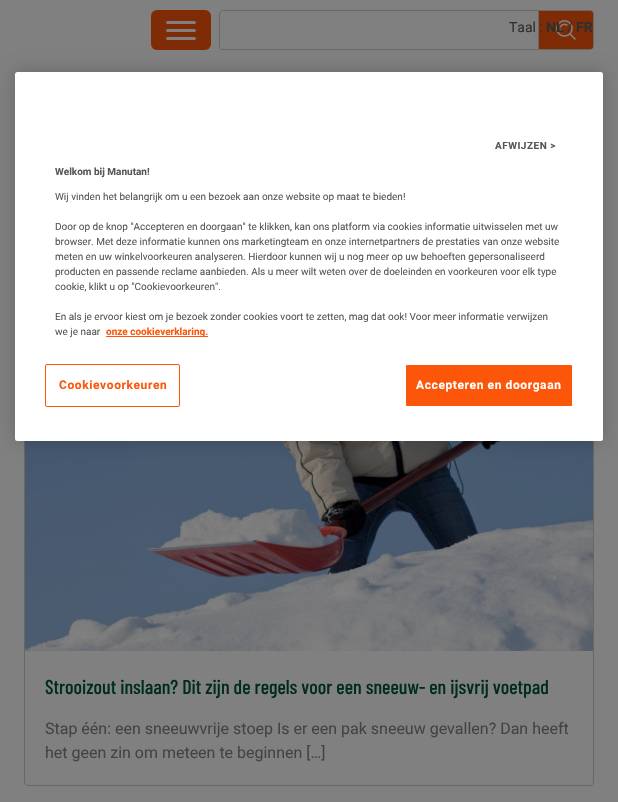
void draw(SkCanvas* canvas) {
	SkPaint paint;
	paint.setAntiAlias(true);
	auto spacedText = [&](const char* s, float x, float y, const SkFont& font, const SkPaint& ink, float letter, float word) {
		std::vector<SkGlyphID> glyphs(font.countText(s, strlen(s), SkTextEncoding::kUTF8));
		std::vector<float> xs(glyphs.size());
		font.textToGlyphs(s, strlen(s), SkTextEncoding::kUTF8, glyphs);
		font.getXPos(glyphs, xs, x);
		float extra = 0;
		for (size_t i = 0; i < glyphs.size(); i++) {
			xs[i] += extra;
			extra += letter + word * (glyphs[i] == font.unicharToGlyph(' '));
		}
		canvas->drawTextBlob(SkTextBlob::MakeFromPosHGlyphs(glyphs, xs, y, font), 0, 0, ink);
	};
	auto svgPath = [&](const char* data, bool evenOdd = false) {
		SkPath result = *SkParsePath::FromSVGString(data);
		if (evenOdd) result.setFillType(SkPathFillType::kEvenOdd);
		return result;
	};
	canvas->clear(0xff808080);
	paint.setColor(0xff7e2b06);
	canvas->drawRoundRect(SkRect::MakeXYWH(151, 10, 60, 40), 6, 6, paint);
	paint.setColor(0xff808080);
	canvas->drawRoundRect(SkRect::MakeXYWH(166, 21, 30, 3), 1.5, 1.5, paint);
	canvas->drawRoundRect(SkRect::MakeXYWH(166, 29, 30, 3), 1.5, 1.5, paint);
	canvas->drawRoundRect(SkRect::MakeXYWH(166, 37, 30, 3), 1.5, 1.5, paint);
	paint.setColor(0xff676766);
	canvas->drawPath(svgPath("M223 10H538V50H223C221 50 219 48 219 46V14C219 12 221 10 223 10ZM223 11H538V49H223C221 49 220 48 220 46V14C220 12 221 11 223 11Z", true), paint);
	paint.setColor(0xff7e2b06);
	canvas->drawPath(svgPath("M538.5 10.5H590C592 10.5 593.5 12 593.5 14V46C593.5 48 592 49.5 590 49.5H538.5Z"), paint);
	paint.setStroke(true);
	paint.setStrokeWidth(1);
	paint.setColor(0xff676766);
	canvas->drawPath(svgPath("M538.5 10.5H590C592 10.5 593.5 12 593.5 14V46C593.5 48 592 49.5 590 49.5H538.5Z"), paint);
	canvas->drawImageRect(SkImages::DeferredFromEncodedData(SkData::MakeFromFileName("img1.png")), SkRect::MakeXYWH(556, 20, 20, 20), SkSamplingOptions());
	SkFont f1(fontMgr->matchFamilyStyle("Roboto", SkFontStyle::Normal()), 14);
	f1.setSubpixel(true);
	paint.setStroke(false);
	paint.setColor(0xff2f2f2e);
	canvas->drawString("Taal :", 509, 32, f1, paint);
	SkFont f2(fontMgr->matchFamilyStyle("Roboto", SkFontStyle::Bold()), 14);
	f2.setSubpixel(true);
	canvas->drawString("NL", 546, 32, f2, paint);
	canvas->drawString("/", 567, 32, f1, paint);
	canvas->drawString("FR", 576, 32, f2, paint);
	paint.setStroke(true);
	paint.setColor(0xff676766);
	canvas->drawRoundRect(SkRect::MakeXYWH(24.5, 410.5, 569, 375), 3.5, 3.5, paint);
	canvas->drawImageRect(SkImages::DeferredFromEncodedData(SkData::MakeFromFileName("img2.png")), SkRect::MakeXYWH(25, 441, 568, 210), SkSamplingOptions());
	SkFont f3(fontMgr->matchFamilyStyle("Barlow Condensed", SkFontStyle(500, SkFontStyle::kNormal_Width, SkFontStyle::kUpright_Slant)), 20);
	f3.setSubpixel(true);
	paint.setStroke(false);
	paint.setColor(0xff002b21);
	canvas->drawString("Strooizout inslaan? Dit zijn de regels voor een sneeuw- en ijsvrij voetpad", 45, 694, f3, paint);
	SkFont f4(fontMgr->matchFamilyStyle("Roboto", SkFontStyle::Normal()), 16);
	f4.setSubpixel(true);
	paint.setColor(0xff434342);
	canvas->drawString("Stap één: een sneeuwvrije stoep Is er een pak sneeuw gevallen? Dan heeft", 45, 734, f4, paint);
	canvas->drawString("het geen zin om meteen te beginnen […]", 45, 758, f4, paint);
	paint.setColor(0x33000000);
	paint.setMaskFilter(SkMaskFilter::MakeBlur(kNormal_SkBlurStyle, 9));
	canvas->drawRoundRect(SkRect::MakeXYWH(15, 72, 588, 369), 2.5, 2.5, paint);
	paint.setMaskFilter(nullptr);
	paint.setColor(0xffffffff);
	canvas->drawRoundRect(SkRect::MakeXYWH(15, 72, 588, 369), 2.5, 2.5, paint);
	SkFont f5(fontMgr->matchFamilyStyle("Roboto", SkFontStyle::Bold()), 10);
	f5.setSubpixel(true);
	paint.setColor(0xff575754);
	spacedText("AFWIJZEN >", 495, 149, f5, paint, 0.5, 0);
	canvas->drawString("Welkom bij Manutan!", 55, 175, f5, paint);
	SkFont f6(fontMgr->matchFamilyStyle("Roboto", SkFontStyle::Normal()), 10);
	f6.setSubpixel(true);
	canvas->drawString("Wij vinden het belangrijk om u een bezoek aan onze website op maat te bieden!", 55, 200, f6, paint);
	canvas->drawString("Door op de knop \"Accepteren en doorgaan\" te klikken, kan ons platform via cookies informatie uitwisselen met uw", 55, 230, f6, paint);
	canvas->drawString("browser. Met deze informatie kunnen ons marketingteam en onze internetpartners de prestaties van onze website", 55, 245, f6, paint);
	canvas->drawString("meten en uw winkelvoorkeuren analyseren. Hierdoor kunnen wij u nog meer op uw behoeften gepersonaliseerd", 55, 260, f6, paint);
	canvas->drawString("producten en passende reclame aanbieden. Als u meer wilt weten over de doeleinden en voorkeuren voor elk type", 55, 275, f6, paint);
	canvas->drawString("cookie, klikt u op \"Cookievoorkeuren\".", 55, 290, f6, paint);
	canvas->drawString("En als je ervoor kiest om je bezoek zonder cookies voort te zetten, mag dat ook! Voor meer informatie verwijzen", 55, 320, f6, paint);
	canvas->drawString("we je naar", 55, 335, f6, paint);
	paint.setColor(0xfffc560b);
	canvas->drawRect(SkRect::MakeXYWH(106, 336, 102, 1), paint);
	canvas->drawString("onze cookieverklaring.", 106, 335, f5, paint);
	paint.setStroke(true);
	canvas->drawRoundRect(SkRect::MakeXYWH(45.5, 364.5, 134, 42), 1.5, 1.5, paint);
	SkFont f7(fontMgr->matchFamilyStyle("Roboto", SkFontStyle::Bold()), 12);
	f7.setSubpixel(true);
	paint.setStroke(false);
	spacedText("Cookievoorkeuren", 59, 389, f7, paint, 0.6, 0);
	canvas->drawRoundRect(SkRect::MakeXYWH(405.5, 364.5, 167, 42), 1.5, 1.5, paint);
	paint.setStroke(true);
	paint.setColor(0xffffffff);
	canvas->drawRoundRect(SkRect::MakeXYWH(405.5, 364.5, 167, 42), 1.5, 1.5, paint);
	paint.setStroke(false);
	spacedText("Accepteren en doorgaan", 416, 389, f7, paint, 0.6, 0);
}
